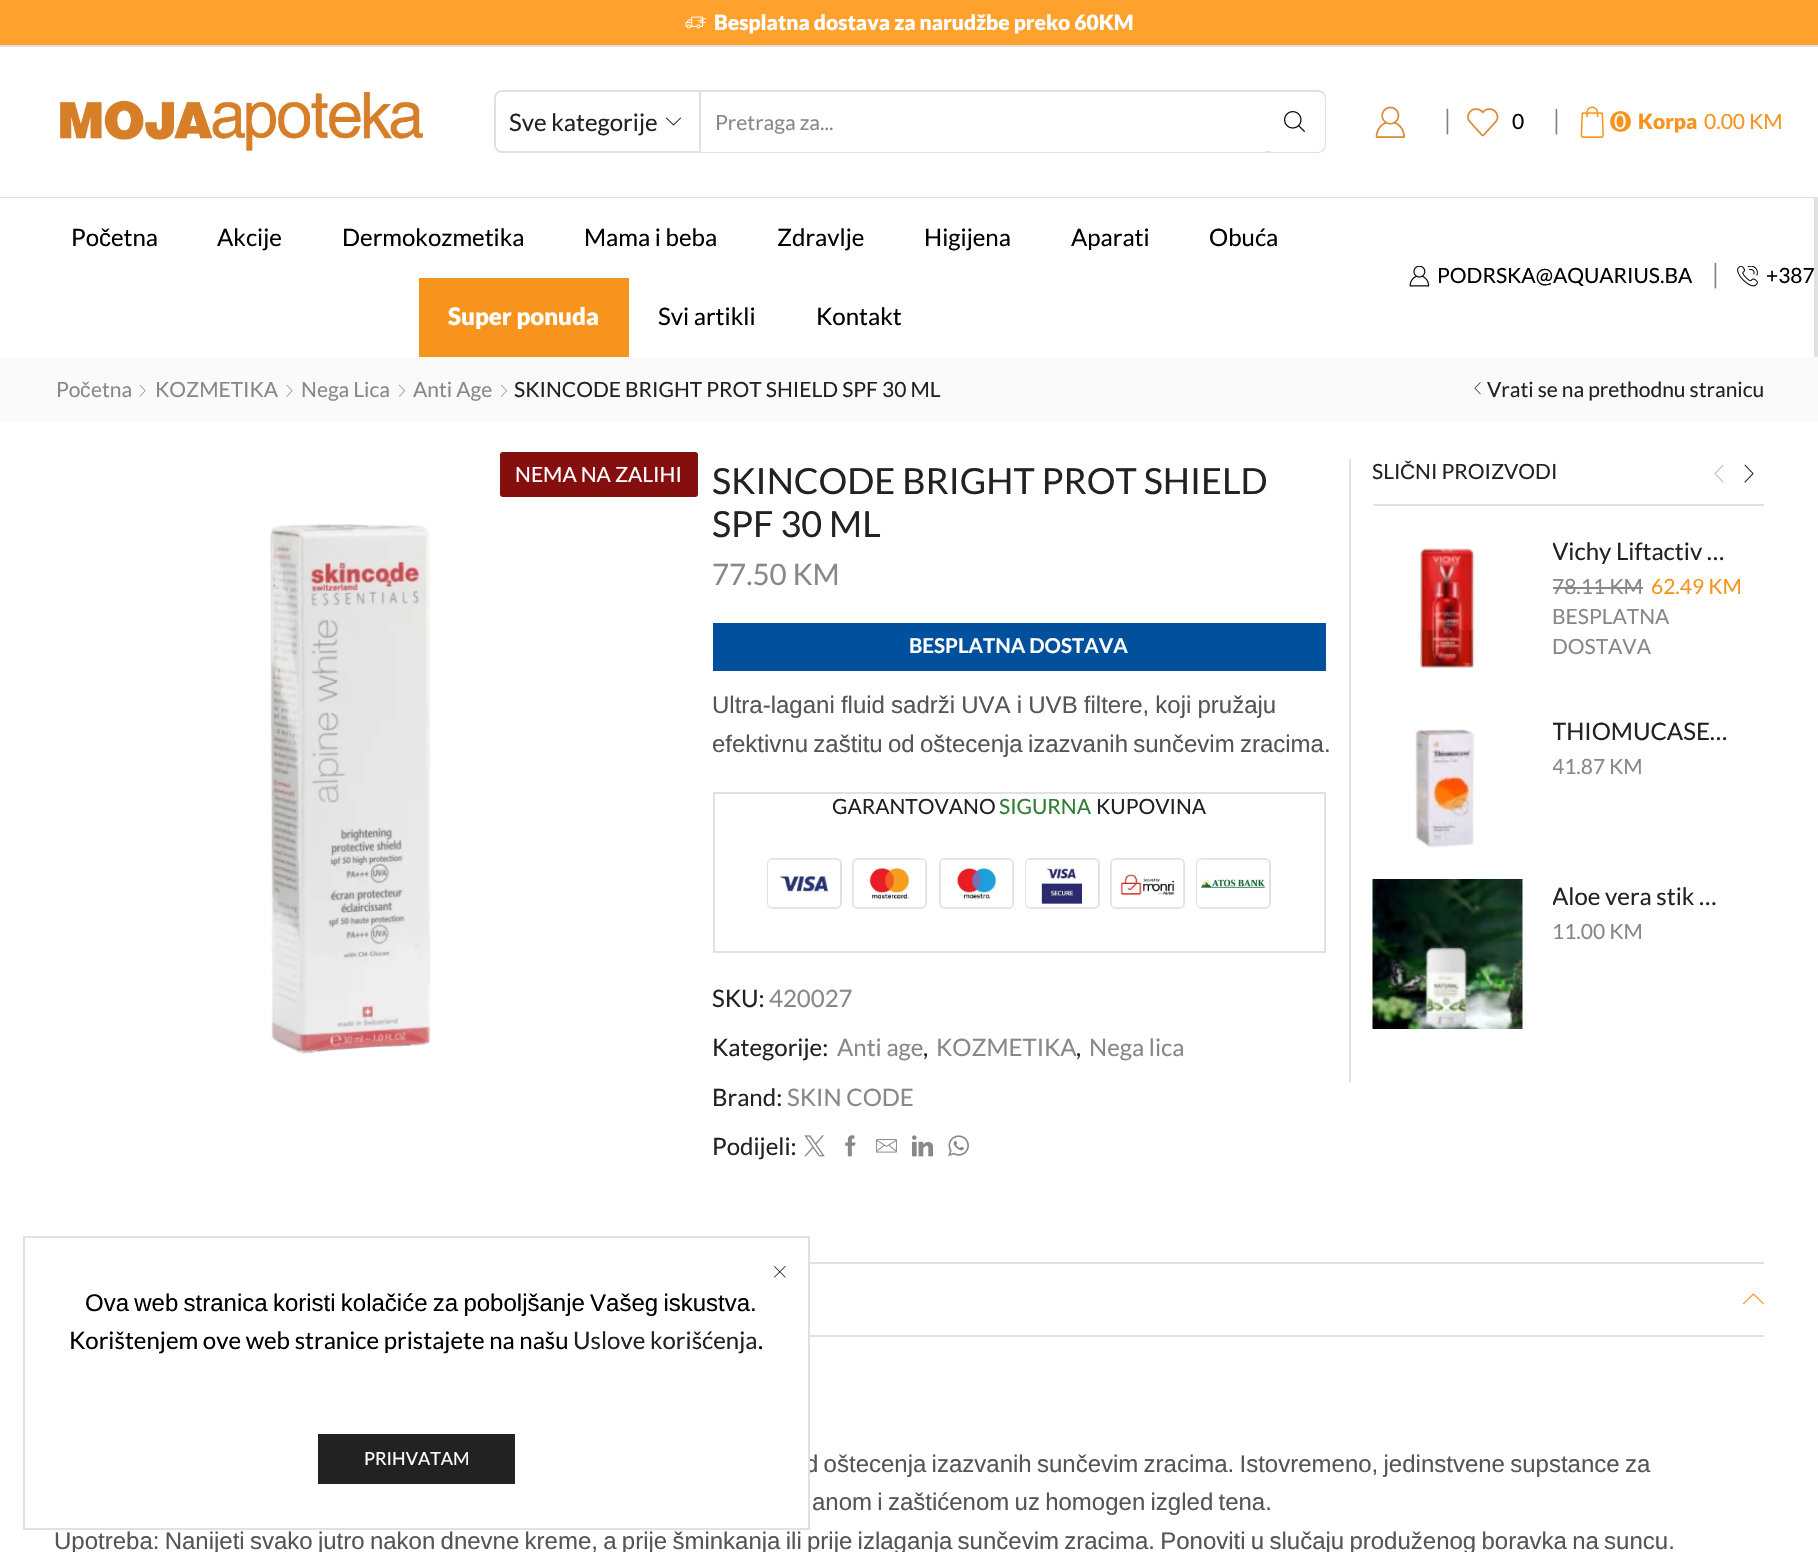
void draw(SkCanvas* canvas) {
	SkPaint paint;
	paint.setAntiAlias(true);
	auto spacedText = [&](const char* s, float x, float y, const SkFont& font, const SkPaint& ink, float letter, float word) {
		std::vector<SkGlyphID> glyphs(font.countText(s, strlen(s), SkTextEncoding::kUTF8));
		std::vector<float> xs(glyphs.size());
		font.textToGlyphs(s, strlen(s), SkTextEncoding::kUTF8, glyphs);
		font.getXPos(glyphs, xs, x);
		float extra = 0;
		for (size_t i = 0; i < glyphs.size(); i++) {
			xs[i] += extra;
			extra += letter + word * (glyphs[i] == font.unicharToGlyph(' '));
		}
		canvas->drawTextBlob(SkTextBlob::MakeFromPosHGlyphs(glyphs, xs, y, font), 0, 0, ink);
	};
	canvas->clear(0xffffffff);
	paint.setColor(0xffe1e1e1);
	canvas->drawRect(SkRect::MakeXYWH(0, 45, 1818, 2), paint);
	paint.setColor(0xffffa12c);
	canvas->drawRect(SkRect::MakeXYWH(0, 0, 1818, 45), paint);
	canvas->drawImageRect(SkImages::DeferredFromEncodedData(SkData::MakeFromFileName("img1.png")), SkRect::MakeXYWH(685, 16, 22, 13), SkSamplingOptions());
	SkFont f1(fontMgr->matchFamilyStyle("Lato", SkFontStyle(900, SkFontStyle::kNormal_Width, SkFontStyle::kUpright_Slant)), 21);
	f1.setSubpixel(true);
	paint.setColor(0xffffffff);
	canvas->drawString("Besplatna dostava za narudžbe preko 60KM", 714, 30, f1, paint);
	paint.setColor(0xffe1e1e1);
	canvas->drawRect(SkRect::MakeXYWH(0, 197, 1818, 1), paint);
	canvas->drawImageRect(SkImages::DeferredFromEncodedData(SkData::MakeFromFileName("img2.png")), SkRect::MakeXYWH(60, 92, 363, 59), SkSamplingOptions());
	paint.setStroke(true);
	paint.setStrokeWidth(2);
	canvas->drawRoundRect(SkRect::MakeXYWH(495, 91, 830, 61), 7, 7, paint);
	canvas->drawImageRect(SkImages::DeferredFromEncodedData(SkData::MakeFromFileName("img3.png")), SkRect::MakeXYWH(666, 117, 15, 9), SkSamplingOptions());
	paint.setStroke(false);
	canvas->drawRect(SkRect::MakeXYWH(699, 92, 2, 60), paint);
	SkFont f2(fontMgr->matchFamilyStyle("Lato", SkFontStyle::Normal()), 24);
	f2.setSubpixel(true);
	paint.setColor(0xff222222);
	canvas->drawString("Sve kategorije", 509, 131, f2, paint);
	paint.setColor(0xffffffff);
	canvas->drawRect(SkRect::MakeXYWH(701, 151, 564, 1), paint);
	SkFont f3(fontMgr->matchFamilyStyle("Lato", SkFontStyle::Normal()), 21);
	f3.setSubpixel(true);
	paint.setColor(0xff888888);
	canvas->drawString("Pretraga za...", 715, 130, f3, paint);
	paint.setColor(0xffffffff);
	canvas->drawRoundRect(SkRect::MakeXYWH(1265, 92, 60, 60), 8, 8, paint);
	canvas->drawImageRect(SkImages::DeferredFromEncodedData(SkData::MakeFromFileName("img4.png")), SkRect::MakeXYWH(1284, 111, 21, 21), SkSamplingOptions());
	canvas->drawImageRect(SkImages::DeferredFromEncodedData(SkData::MakeFromFileName("img5.png")), SkRect::MakeXYWH(1375, 106, 30, 32), SkSamplingOptions());
	SkFont f4(fontMgr->matchFamilyStyle("Liberation Serif", SkFontStyle::Normal()), 21);
	f4.setSubpixel(true);
	paint.setColor(0xff808080);
	canvas->drawString("│", 1440, 128, f4, paint);
	canvas->drawImageRect(SkImages::DeferredFromEncodedData(SkData::MakeFromFileName("img6.png")), SkRect::MakeXYWH(1467, 108, 32, 29), SkSamplingOptions());
	paint.setColor(0xff000000);
	canvas->drawString("0", 1512, 129, f3, paint);
	paint.setColor(0xff808080);
	canvas->drawString("│", 1549, 128, f4, paint);
	canvas->drawImageRect(SkImages::DeferredFromEncodedData(SkData::MakeFromFileName("img7.png")), SkRect::MakeXYWH(1580, 106, 24, 32), SkSamplingOptions());
	paint.setColor(0xfff7941e);
	canvas->drawCircle(1620.5, 121.5, 10.5, paint);
	paint.setColor(0xffffffff);
	canvas->drawString("0", 1614, 129, f3, paint);
	paint.setColor(0xfff7941e);
	canvas->drawString("Korpa", 1638, 129, f1, paint);
	canvas->drawString("0.00 KM", 1704, 129, f3, paint);
	paint.setColor(0xffe1e1e1);
	canvas->drawRect(SkRect::MakeXYWH(1814, 198, 4, 159), paint);
	paint.setColor(0xff000000);
	canvas->drawString("Po", 71, 246, f2, paint);
	SkFont f5(fontMgr->matchFamilyStyle("Liberation Sans", SkFontStyle::Normal()), 24);
	f5.setSubpixel(true);
	canvas->drawString("č", 99, 246, f5, paint);
	canvas->drawString("etna", 111, 246, f2, paint);
	canvas->drawString("Akcije", 217, 246, f2, paint);
	canvas->drawString("Dermokozmetika", 342, 246, f2, paint);
	canvas->drawString("Mama i beba", 584, 246, f2, paint);
	canvas->drawString("Zdravlje", 777, 246, f2, paint);
	canvas->drawString("Higijena", 924, 246, f2, paint);
	canvas->drawString("Aparati", 1071, 246, f2, paint);
	canvas->drawString("Obuća", 1209, 246, f2, paint);
	paint.setColor(0xfff7941e);
	canvas->drawRect(SkRect::MakeXYWH(419, 278, 210, 79), paint);
	SkFont f6(fontMgr->matchFamilyStyle("Lato", SkFontStyle(900, SkFontStyle::kNormal_Width, SkFontStyle::kUpright_Slant)), 24);
	f6.setSubpixel(true);
	paint.setColor(0xffffffff);
	canvas->drawString("Super ponuda", 448, 325, f6, paint);
	paint.setColor(0xff000000);
	canvas->drawString("Svi artikli", 658, 325, f2, paint);
	canvas->drawString("Kontakt", 816, 325, f2, paint);
	canvas->drawImageRect(SkImages::DeferredFromEncodedData(SkData::MakeFromFileName("img8.png")), SkRect::MakeXYWH(1409, 266, 21, 21), SkSamplingOptions());
	canvas->drawString("PODRSKA@AQUARIUS.BA", 1437, 283, f3, paint);
	paint.setColor(0xff808080);
	canvas->drawString("│", 1708, 282, f4, paint);
	canvas->drawImageRect(SkImages::DeferredFromEncodedData(SkData::MakeFromFileName("img9.png")), SkRect::MakeXYWH(1737, 266, 21, 21), SkSamplingOptions());
	paint.setColor(0xff000000);
	canvas->drawString("+387", 1766, 283, f3, paint);
	paint.setColor(0xfffafafa);
	canvas->drawRect(SkRect::MakeXYWH(0, 357, 1818, 65), paint);
	paint.setColor(0xff888888);
	canvas->drawString("Po", 56, 397, f3, paint);
	SkFont f7(fontMgr->matchFamilyStyle("Liberation Sans", SkFontStyle::Normal()), 21);
	f7.setSubpixel(true);
	canvas->drawString("č", 80, 397, f7, paint);
	canvas->drawString("etna", 91, 397, f3, paint);
	canvas->drawImageRect(SkImages::DeferredFromEncodedData(SkData::MakeFromFileName("img10.png")), SkRect::MakeXYWH(139, 384, 7, 13), SkSamplingOptions());
	canvas->drawString("KOZMETIKA", 155, 397, f3, paint);
	canvas->drawImageRect(SkImages::DeferredFromEncodedData(SkData::MakeFromFileName("img10.png")), SkRect::MakeXYWH(286, 384, 7, 13), SkSamplingOptions());
	canvas->drawString("Nega Lica", 301, 397, f3, paint);
	canvas->drawImageRect(SkImages::DeferredFromEncodedData(SkData::MakeFromFileName("img11.png")), SkRect::MakeXYWH(399, 384, 6, 13), SkSamplingOptions());
	canvas->drawString("Anti Age", 413, 397, f3, paint);
	canvas->drawImageRect(SkImages::DeferredFromEncodedData(SkData::MakeFromFileName("img11.png")), SkRect::MakeXYWH(501, 384, 6, 13), SkSamplingOptions());
	paint.setColor(0xff222222);
	canvas->drawString("SKINCODE BRIGHT PROT SHIELD SPF 30 ML", 514, 397, f3, paint);
	canvas->drawImageRect(SkImages::DeferredFromEncodedData(SkData::MakeFromFileName("img12.png")), SkRect::MakeXYWH(1474, 382, 7, 13), SkSamplingOptions());
	canvas->drawString("Vrati se na prethodnu stranicu", 1487, 397, f3, paint);
	paint.setColor(0xff850e0e);
	canvas->drawRoundRect(SkRect::MakeXYWH(500, 452, 198, 45), 3, 3, paint);
	paint.setColor(0xffffffff);
	canvas->drawString("NEMA NA ZALIHI", 515, 482, f3, paint);
	canvas->drawImageRect(SkImages::DeferredFromEncodedData(SkData::MakeFromFileName("img13.png")), SkRect::MakeXYWH(269, 523, 162, 531), SkSamplingOptions());
	SkFont f8(fontMgr->matchFamilyStyle("Lato", SkFontStyle::Normal()), 36);
	f8.setSubpixel(true);
	paint.setColor(0xff222222);
	canvas->drawString("SKINCODE BRIGHT PROT SHIELD", 712, 494, f8, paint);
	canvas->drawString("SPF 30 ML", 712, 537, f8, paint);
	SkFont f9(fontMgr->matchFamilyStyle("Lato", SkFontStyle::Normal()), 29.5);
	f9.setSubpixel(true);
	paint.setColor(0xff888888);
	canvas->drawString("77.50 KM", 712, 585, f9, paint);
	paint.setColor(0xff00509d);
	canvas->drawRect(SkRect::MakeXYWH(713, 623, 613, 48), paint);
	SkFont f10(fontMgr->matchFamilyStyle("Lato", SkFontStyle::Bold()), 20.5);
	f10.setSubpixel(true);
	paint.setColor(0xffffffff);
	canvas->drawString("BESPLATNA DOSTAVA", 909, 653, f10, paint);
	paint.setColor(0xff555555);
	spacedText("Ultra-lagani fluid sadrži UVA i UVB filtere, koji pružaju", 712, 713, f5, paint, 0, -0.5);
	spacedText("efektivnu zaštitu od oštecenja izazvanih sunčevim zracima.", 712, 752, f5, paint, 0, -1.4);
	paint.setStroke(true);
	paint.setColor(0xffe1e1e1);
	canvas->drawRect(SkRect::MakeXYWH(714, 793, 611, 159), paint);
	paint.setStroke(false);
	paint.setColor(0xff222222);
	canvas->drawString("GARANTOVANO", 832, 814, f3, paint);
	paint.setColor(0xff2e7d32);
	canvas->drawString("SIGURNA", 999, 814, f3, paint);
	paint.setColor(0xff222222);
	canvas->drawString("KUPOVINA", 1096, 814, f3, paint);
	paint.setStroke(true);
	paint.setColor(0xffe1e1e1);
	canvas->drawRoundRect(SkRect::MakeXYWH(768, 859, 73, 49), 5, 5, paint);
	canvas->drawImageRect(SkImages::DeferredFromEncodedData(SkData::MakeFromFileName("img14.png")), SkRect::MakeXYWH(768, 859, 72, 49), SkSamplingOptions());
	canvas->drawRoundRect(SkRect::MakeXYWH(853, 859, 73, 49), 5, 5, paint);
	canvas->drawImageRect(SkImages::DeferredFromEncodedData(SkData::MakeFromFileName("img15.png")), SkRect::MakeXYWH(853, 859, 73, 49), SkSamplingOptions());
	canvas->drawRoundRect(SkRect::MakeXYWH(940, 859, 73, 49), 5, 5, paint);
	canvas->drawImageRect(SkImages::DeferredFromEncodedData(SkData::MakeFromFileName("img16.png")), SkRect::MakeXYWH(940, 859, 73, 49), SkSamplingOptions());
	canvas->drawRoundRect(SkRect::MakeXYWH(1026, 859, 73, 49), 5, 5, paint);
	canvas->drawImageRect(SkImages::DeferredFromEncodedData(SkData::MakeFromFileName("img17.png")), SkRect::MakeXYWH(1026, 859, 72, 49), SkSamplingOptions());
	canvas->drawRoundRect(SkRect::MakeXYWH(1111, 859, 73, 49), 5, 5, paint);
	canvas->drawImageRect(SkImages::DeferredFromEncodedData(SkData::MakeFromFileName("img18.png")), SkRect::MakeXYWH(1111, 859, 73, 49), SkSamplingOptions());
	canvas->drawRoundRect(SkRect::MakeXYWH(1197, 859, 73, 49), 5, 5, paint);
	canvas->drawImageRect(SkImages::DeferredFromEncodedData(SkData::MakeFromFileName("img19.png")), SkRect::MakeXYWH(1197, 859, 72, 49), SkSamplingOptions());
	paint.setStroke(false);
	paint.setColor(0xff222222);
	canvas->drawString("SKU:", 712, 1007, f2, paint);
	paint.setColor(0xff888888);
	canvas->drawString("420027", 769, 1007, f2, paint);
	paint.setColor(0xff222222);
	canvas->drawString("Kategorije:", 712, 1056, f2, paint);
	paint.setColor(0xff888888);
	canvas->drawString("Anti age", 837, 1056, f2, paint);
	paint.setColor(0xff222222);
	canvas->drawString(",", 923, 1056, f2, paint);
	paint.setColor(0xff888888);
	canvas->drawString("KOZMETIKA", 936, 1056, f2, paint);
	paint.setColor(0xff222222);
	canvas->drawString(",", 1076, 1056, f2, paint);
	paint.setColor(0xff888888);
	canvas->drawString("Nega lica", 1089, 1056, f2, paint);
	paint.setColor(0xff222222);
	canvas->drawString("Brand:", 712, 1106, f2, paint);
	paint.setColor(0xff888888);
	canvas->drawString("SKIN CODE", 787, 1106, f2, paint);
	paint.setColor(0xff222222);
	canvas->drawString("Podijeli:", 712, 1155, f2, paint);
	canvas->drawImageRect(SkImages::DeferredFromEncodedData(SkData::MakeFromFileName("img20.png")), SkRect::MakeXYWH(804, 1135, 21, 22), SkSamplingOptions());
	canvas->drawImageRect(SkImages::DeferredFromEncodedData(SkData::MakeFromFileName("img21.png")), SkRect::MakeXYWH(845, 1135, 11, 22), SkSamplingOptions());
	canvas->drawImageRect(SkImages::DeferredFromEncodedData(SkData::MakeFromFileName("img22.png")), SkRect::MakeXYWH(876, 1139, 21, 14), SkSamplingOptions());
	canvas->drawImageRect(SkImages::DeferredFromEncodedData(SkData::MakeFromFileName("img23.png")), SkRect::MakeXYWH(912, 1135, 21, 22), SkSamplingOptions());
	canvas->drawImageRect(SkImages::DeferredFromEncodedData(SkData::MakeFromFileName("img24.png")), SkRect::MakeXYWH(948, 1135, 21, 22), SkSamplingOptions());
	paint.setColor(0xffe1e1e1);
	canvas->drawRect(SkRect::MakeXYWH(1349, 459, 2, 623), paint);
	canvas->drawRect(SkRect::MakeXYWH(1373, 504, 391, 2), paint);
	paint.setColor(0xff222222);
	canvas->drawString("SLI", 1372, 479, f3, paint);
	canvas->drawString("Č", 1400, 479, f7, paint);
	canvas->drawString("NI PROIZVODI", 1415, 479, f3, paint);
	canvas->drawImageRect(SkImages::DeferredFromEncodedData(SkData::MakeFromFileName("img25.png")), SkRect::MakeXYWH(1714, 464, 10, 19), SkSamplingOptions());
	canvas->drawImageRect(SkImages::DeferredFromEncodedData(SkData::MakeFromFileName("img26.png")), SkRect::MakeXYWH(1744, 464, 10, 19), SkSamplingOptions());
	canvas->drawImageRect(SkImages::DeferredFromEncodedData(SkData::MakeFromFileName("img27.png")), SkRect::MakeXYWH(1420, 548, 55, 120), SkSamplingOptions());
	canvas->save();
	canvas->clipRect(SkRect::MakeXYWH(1553, 534, 175, 35));
	canvas->drawString("Vichy Liftactiv …", 1552, 560, f2, paint);
	canvas->restore();
	paint.setColor(0xff888888);
	canvas->drawString("78.11 KM", 1552, 594, f3, paint);
	canvas->drawRect(SkRect::MakeXYWH(1553, 587, 90, 2), paint);
	paint.setColor(0xfff7941e);
	canvas->drawString("62.49 KM", 1651, 594, f3, paint);
	paint.setColor(0xff888888);
	canvas->drawString("BESPLATNA", 1552, 624, f3, paint);
	canvas->drawString("DOSTAVA", 1552, 654, f3, paint);
	canvas->drawImageRect(SkImages::DeferredFromEncodedData(SkData::MakeFromFileName("img28.png")), SkRect::MakeXYWH(1415, 729, 60, 119), SkSamplingOptions());
	canvas->save();
	canvas->clipRect(SkRect::MakeXYWH(1553, 714, 175, 35));
	paint.setColor(0xff222222);
	canvas->drawString("THIOMUCASE…", 1552, 740, f2, paint);
	canvas->restore();
	canvas->save();
	canvas->clipRect(SkRect::MakeXYWH(1553, 714, 211, 68));
	paint.setColor(0xff888888);
	canvas->drawString("41.87", 1552, 774, f3, paint);
	canvas->restore();
	canvas->drawString("KM", 1609, 774, f3, paint);
	canvas->drawImageRect(SkImages::DeferredFromEncodedData(SkData::MakeFromFileName("img29.png")), SkRect::MakeXYWH(1372, 879, 151, 150), SkSamplingOptions());
	canvas->save();
	canvas->clipRect(SkRect::MakeXYWH(1553, 879, 175, 35));
	paint.setColor(0xff222222);
	canvas->drawString("Aloe vera stik …", 1552, 905, f2, paint);
	canvas->restore();
	paint.setColor(0xff888888);
	canvas->drawString("11.00 KM", 1552, 939, f3, paint);
	paint.setColor(0xffe1e1e1);
	canvas->drawRect(SkRect::MakeXYWH(810, 1262, 954, 2), paint);
	canvas->drawRect(SkRect::MakeXYWH(810, 1335, 954, 2), paint);
	canvas->drawImageRect(SkImages::DeferredFromEncodedData(SkData::MakeFromFileName("img30.png")), SkRect::MakeXYWH(1743, 1293, 21, 12), SkSamplingOptions());
	paint.setColor(0xff555555);
	spacedText("d oštecenja izazvanih sunčevim zracima. Istovremeno, jedinstvene supstance za", 805, 1472, f5, paint, 0, -1.4);
	spacedText("anom i zaštićenom uz homogen izgled tena.", 812, 1510, f5, paint, 0, -1.4);
	spacedText("Upotreba: Nanijeti svako jutro nakon dnevne kreme, a prije šminkanja ili prije izlaganja sunčevim zracima. Ponoviti u slučaju produženog boravka na suncu.", 54, 1549, f5, paint, 0, -1.4);
	paint.setColor(0xffffffff);
	canvas->drawRect(SkRect::MakeXYWH(806, 1460, 2, 12), paint);
	paint.setStroke(true);
	paint.setColor(0xffe1e1e1);
	canvas->drawRect(SkRect::MakeXYWH(24, 1237, 785, 292), paint);
	canvas->drawImageRect(SkImages::DeferredFromEncodedData(SkData::MakeFromFileName("img31.png")), SkRect::MakeXYWH(774, 1266, 12, 12), SkSamplingOptions());
	paint.setStroke(false);
	paint.setColor(0xff000000);
	spacedText("Ova web stranica koristi kolačiće za poboljšanje Vašeg iskustva.", 85, 1311, f5, paint, 0, -1.4);
	canvas->drawString("Korištenjem ove web stranice pristajete na našu", 69, 1349, f2, paint);
	paint.setColor(0xff222222);
	canvas->drawString("Uslove korišćenja", 573, 1349, f2, paint);
	paint.setColor(0xff000000);
	canvas->drawString(".", 758, 1349, f2, paint);
	paint.setColor(0xff222222);
	canvas->drawRect(SkRect::MakeXYWH(318, 1434, 197, 50), paint);
	SkFont f11(fontMgr->matchFamilyStyle("Lato", SkFontStyle::Normal()), 18);
	f11.setSubpixel(true);
	paint.setColor(0xffffffff);
	canvas->drawString("PRIHVATAM", 364, 1465, f11, paint);
}
